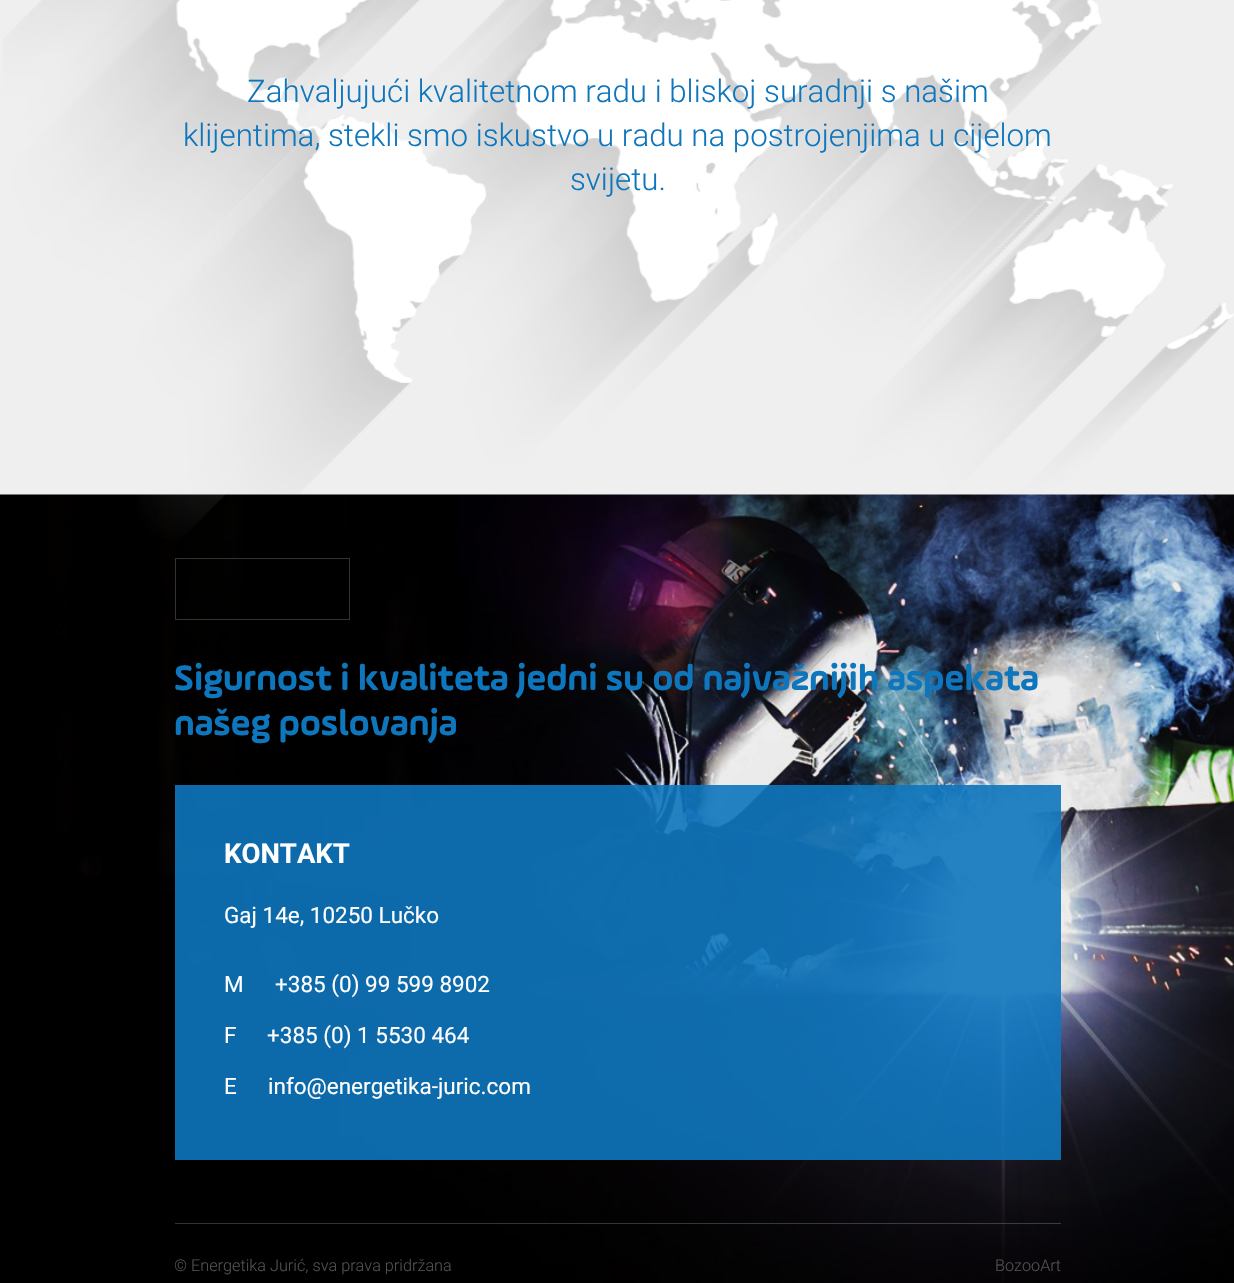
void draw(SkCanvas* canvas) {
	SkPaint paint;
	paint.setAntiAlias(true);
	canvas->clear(0xffefeff0);
	canvas->drawImageRect(SkImages::DeferredFromEncodedData(SkData::MakeFromFileName("img1.png")), SkRect::MakeXYWH(3, 0, 1231, 494), SkSamplingOptions());
	SkFont f1(fontMgr->matchFamilyStyle("Roboto", SkFontStyle(300, SkFontStyle::kNormal_Width, SkFontStyle::kUpright_Slant)), 31.25);
	f1.setSubpixel(true);
	paint.setColor(0xff0e76bc);
	canvas->drawString("Zahvaljujući kvalitetnom radu i bliskoj suradnji s našim", 247, 102, f1, paint);
	canvas->drawString("klijentima, stekli smo iskustvo u radu na postrojenjima u cijelom", 183, 146, f1, paint);
	canvas->drawString("svijetu.", 570, 190, f1, paint);
	canvas->drawImageRect(SkImages::DeferredFromEncodedData(SkData::MakeFromFileName("img2.png")), SkRect::MakeXYWH(0, 494, 1234, 789), SkSamplingOptions());
	paint.setStroke(true);
	paint.setStrokeWidth(1);
	paint.setColor(0xff333333);
	canvas->drawRect(SkRect::MakeXYWH(175.5, 558.5, 174, 61), paint);
	SkFont f2(fontMgr->matchFamilyStyle("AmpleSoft", SkFontStyle::Bold()), 37.5);
	f2.setSubpixel(true);
	paint.setStroke(false);
	paint.setColor(0xff0e76bc);
	canvas->drawString("Sigurnost i kvaliteta jedni su od najvažnijih aspekata", 174, 690, f2, paint);
	canvas->drawString("našeg poslovanja", 174, 735, f2, paint);
	paint.setColor(0xe60e76bc);
	canvas->drawRect(SkRect::MakeXYWH(175, 785, 886, 375), paint);
	SkFont f3(fontMgr->matchFamilyStyle("Roboto", SkFontStyle::Bold()), 27.5);
	f3.setSubpixel(true);
	paint.setColor(0xffffffff);
	canvas->drawString("KONTAKT", 224, 863, f3, paint);
	SkFont f4(fontMgr->matchFamilyStyle("Roboto", SkFontStyle::Normal()), 22.5);
	f4.setSubpixel(true);
	canvas->drawString("Gaj 14e, 10250 Lučko", 224, 923, f4, paint);
	canvas->drawString("M", 224, 992, f4, paint);
	canvas->drawString("+385 (0) 99 599 8902", 275, 992, f4, paint);
	canvas->drawString("F", 224, 1043, f4, paint);
	canvas->drawString("+385 (0) 1 5530 464", 267, 1043, f4, paint);
	canvas->drawString("E", 224, 1094, f4, paint);
	canvas->drawString("info@energetika-juric.com", 268, 1094, f4, paint);
	paint.setColor(0x33ffffff);
	canvas->drawRect(SkRect::MakeXYWH(175, 1223, 886, 1), paint);
	SkFont f5(fontMgr->matchFamilyStyle("Roboto", SkFontStyle(300, SkFontStyle::kNormal_Width, SkFontStyle::kUpright_Slant)), 16.25);
	f5.setSubpixel(true);
	paint.setColor(0xff515052);
	canvas->drawString("© Energetika Jurić, sva prava pridržana", 174, 1271, f5, paint);
	canvas->drawString("BozooArt", 995, 1271, f5, paint);
}
